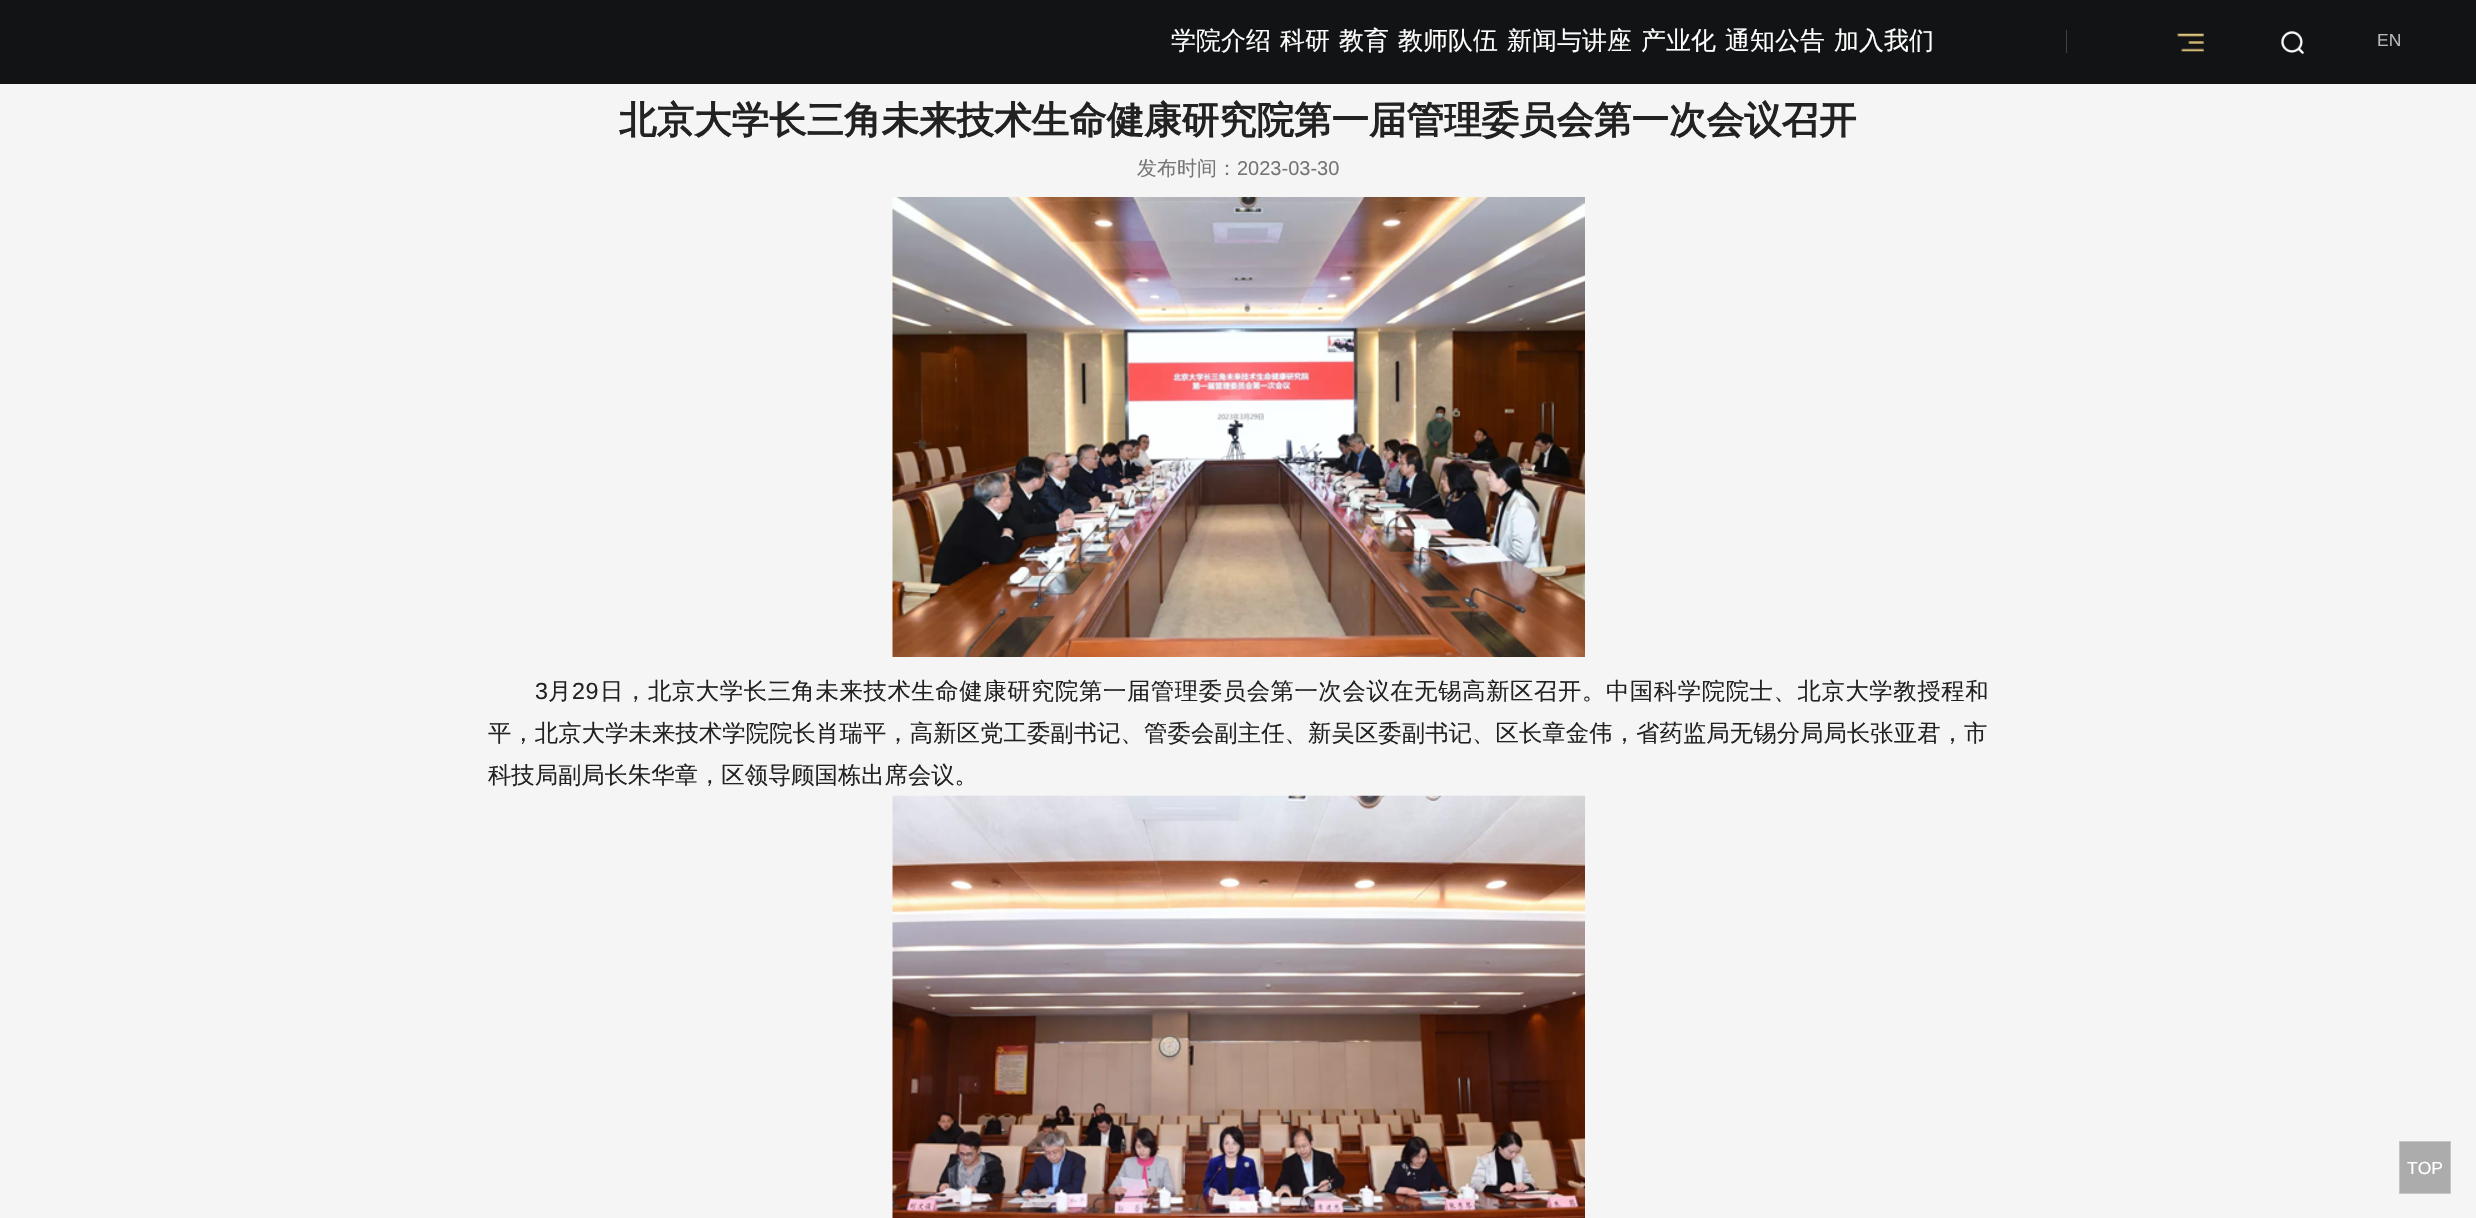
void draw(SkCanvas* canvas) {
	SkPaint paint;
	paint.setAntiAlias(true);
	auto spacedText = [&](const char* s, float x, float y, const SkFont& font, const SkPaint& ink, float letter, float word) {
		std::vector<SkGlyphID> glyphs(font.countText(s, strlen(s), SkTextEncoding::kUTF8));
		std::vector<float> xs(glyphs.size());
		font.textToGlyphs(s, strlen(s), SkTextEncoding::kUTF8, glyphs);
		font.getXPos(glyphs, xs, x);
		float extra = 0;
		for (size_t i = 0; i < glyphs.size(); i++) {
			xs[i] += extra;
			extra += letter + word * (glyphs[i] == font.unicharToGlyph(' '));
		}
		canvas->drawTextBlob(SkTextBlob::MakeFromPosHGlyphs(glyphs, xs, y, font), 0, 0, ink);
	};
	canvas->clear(0xfff5f5f5);
	paint.setColor(0xff121314);
	canvas->drawRect(SkRect::MakeXYWH(0, 0, 2476, 84), paint);
	SkFont f1(fontMgr->matchFamilyStyle("WenQuanYi Zen Hei", SkFontStyle(500, SkFontStyle::kNormal_Width, SkFontStyle::kUpright_Slant)), 25);
	f1.setSubpixel(true);
	paint.setColor(0xffffffff);
	canvas->drawString("学院介绍", 1171, 49, f1, paint);
	canvas->drawString("科研", 1280, 49, f1, paint);
	canvas->drawString("教育", 1339, 49, f1, paint);
	canvas->drawString("教师队伍", 1398, 49, f1, paint);
	canvas->drawString("新闻与讲座", 1507, 49, f1, paint);
	canvas->drawString("产业化", 1641, 49, f1, paint);
	canvas->drawString("通知公告", 1725, 49, f1, paint);
	canvas->drawString("加入我们", 1834, 49, f1, paint);
	paint.setColor(0xff414243);
	canvas->drawRect(SkRect::MakeXYWH(2066, 30, 1, 23), paint);
	canvas->drawImageRect(SkImages::DeferredFromEncodedData(SkData::MakeFromFileName("img1.png")), SkRect::MakeXYWH(2177, 33, 27, 19), SkSamplingOptions());
	canvas->drawImageRect(SkImages::DeferredFromEncodedData(SkData::MakeFromFileName("img2.png")), SkRect::MakeXYWH(2281, 31, 23, 23), SkSamplingOptions());
	SkFont f2(fontMgr->matchFamilyStyle("Liberation Sans", SkFontStyle::Normal()), 17.5);
	f2.setSubpixel(true);
	paint.setColor(0xffb8b8b9);
	canvas->drawString("EN", 2377, 46, f2, paint);
	SkFont f3(fontMgr->matchFamilyStyle("WenQuanYi Zen Hei", SkFontStyle::Bold()), 37.5);
	f3.setSubpixel(true);
	paint.setColor(0xff222222);
	canvas->drawString("北京大学长三角未来技术生命健康研究院第一届管理委员会第一次会议召开", 619, 133, f3, paint);
	SkFont f4(fontMgr->matchFamilyStyle("WenQuanYi Zen Hei", SkFontStyle(500, SkFontStyle::kNormal_Width, SkFontStyle::kUpright_Slant)), 20);
	f4.setSubpixel(true);
	paint.setColor(0xff757575);
	canvas->drawString("发布时间：", 1137, 175, f4, paint);
	SkFont f5(fontMgr->matchFamilyStyle("Liberation Sans", SkFontStyle::Normal()), 20);
	f5.setSubpixel(true);
	canvas->drawString("2023-03-30", 1237, 175, f5, paint);
	canvas->drawImageRect(SkImages::DeferredFromEncodedData(SkData::MakeFromFileName("img3.png")), SkRect::MakeXYWH(892, 197, 693, 460), SkSamplingOptions());
	SkFont f6(fontMgr->matchFamilyStyle("Liberation Sans", SkFontStyle::Normal()), 23.33);
	f6.setSubpixel(true);
	paint.setColor(0xff222222);
	spacedText("3", 535, 699, f6, paint, 0.62, 0);
	SkFont f7(fontMgr->matchFamilyStyle("WenQuanYi Zen Hei", SkFontStyle(500, SkFontStyle::kNormal_Width, SkFontStyle::kUpright_Slant)), 23.33);
	f7.setSubpixel(true);
	spacedText("月", 548, 699, f7, paint, 0.62, 0);
	spacedText("29", 572, 699, f6, paint, 0.62, 0);
	spacedText("日，北京大学长三角未来技术生命健康研究院第一届管理委员会第一次会议在无锡高新区召开。中国科学院院士、北京大学教授程和", 600, 699, f7, paint, 0.62, 0);
	spacedText("平，北京大学未来技术学院院长肖瑞平，高新区党工委副书记、管委会副主任、新吴区委副书记、区长章金伟，省药监局无锡分局局长张亚君，市", 488, 741, f7, paint, 0.1, 0);
	canvas->drawString("科技局副局长朱华章，区领导顾国栋出席会议。", 488, 783, f7, paint);
	canvas->drawImageRect(SkImages::DeferredFromEncodedData(SkData::MakeFromFileName("img4.png")), SkRect::MakeXYWH(892, 795, 693, 423), SkSamplingOptions());
	paint.setColor(0xffacacac);
	canvas->drawRect(SkRect::MakeXYWH(2399.5, 1141.5, 51, 52), paint);
	paint.setStroke(true);
	paint.setStrokeWidth(1);
	paint.setColor(0xffc5c5c5);
	canvas->drawRect(SkRect::MakeXYWH(2399.5, 1141.5, 51, 52), paint);
	paint.setStroke(false);
	paint.setColor(0xffffffff);
	canvas->drawString("TOP", 2407, 1174, f2, paint);
}
